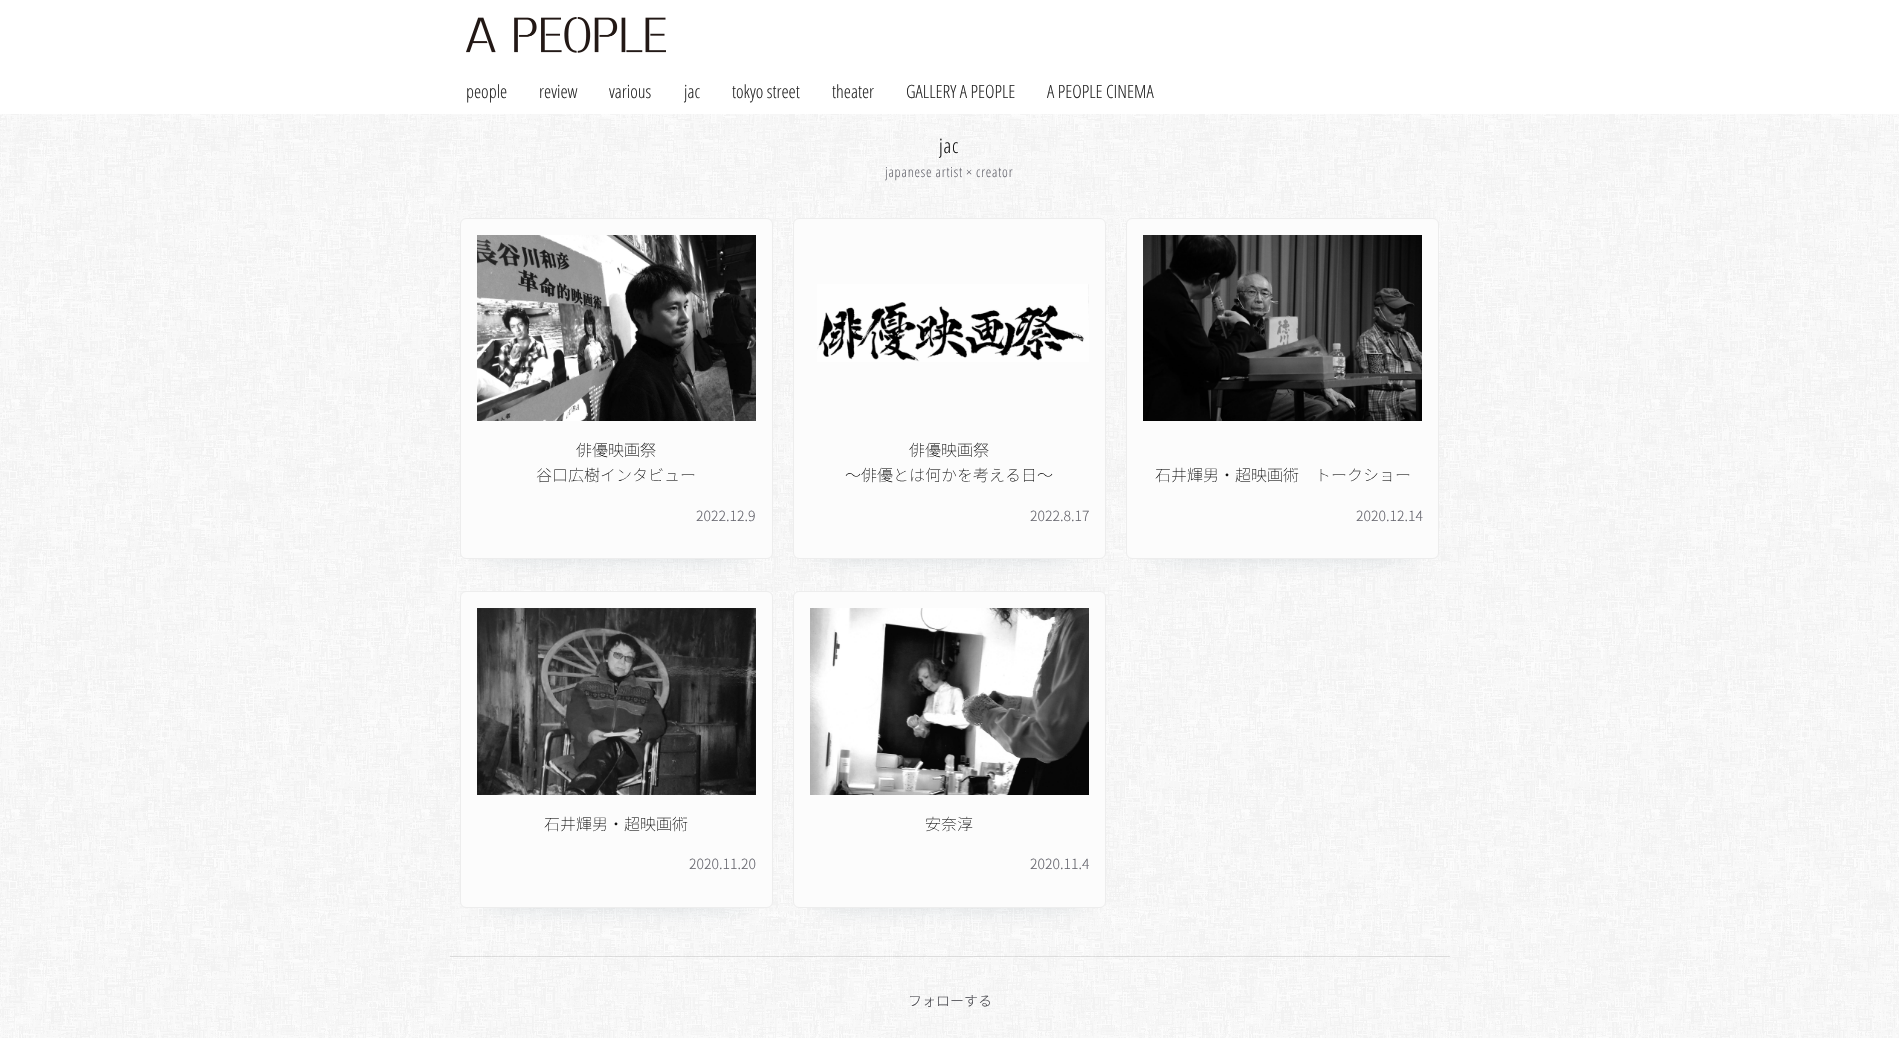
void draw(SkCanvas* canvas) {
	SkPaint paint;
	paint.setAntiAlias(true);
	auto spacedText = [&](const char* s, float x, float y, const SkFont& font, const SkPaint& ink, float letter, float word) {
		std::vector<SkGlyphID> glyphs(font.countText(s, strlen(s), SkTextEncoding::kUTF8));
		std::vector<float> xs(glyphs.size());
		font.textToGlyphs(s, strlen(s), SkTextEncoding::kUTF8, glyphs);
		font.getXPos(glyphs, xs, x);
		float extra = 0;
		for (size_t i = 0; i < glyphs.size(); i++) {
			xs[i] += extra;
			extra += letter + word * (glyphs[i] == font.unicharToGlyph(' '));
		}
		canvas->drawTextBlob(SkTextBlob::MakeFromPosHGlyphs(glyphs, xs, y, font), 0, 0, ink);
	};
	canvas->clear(0xffffffff);
	canvas->drawImageRect(SkImages::DeferredFromEncodedData(SkData::MakeFromFileName("img1.png")), SkRect::MakeXYWH(0, 114, 1899, 924), SkSamplingOptions());
	canvas->drawImageRect(SkImages::DeferredFromEncodedData(SkData::MakeFromFileName("img2.png")), SkRect::MakeXYWH(466, 17, 200, 36), SkSamplingOptions());
	SkFont f1(fontMgr->matchFamilyStyle("Open Sans Condensed", SkFontStyle(300, SkFontStyle::kNormal_Width, SkFontStyle::kUpright_Slant)), 18.25);
	f1.setSubpixel(true);
	paint.setColor(0xff292929);
	canvas->drawString("people", 466, 98, f1, paint);
	canvas->drawString("review", 539, 98, f1, paint);
	canvas->drawString("various", 609, 98, f1, paint);
	canvas->drawString("jac", 684, 98, f1, paint);
	canvas->drawString("tokyo street", 732, 98, f1, paint);
	canvas->drawString("theater", 832, 98, f1, paint);
	canvas->drawString("GALLERY A PEOPLE", 906, 98, f1, paint);
	canvas->drawString("A PEOPLE CINEMA", 1047, 98, f1, paint);
	SkFont f2(fontMgr->matchFamilyStyle("Open Sans Condensed", SkFontStyle(300, SkFontStyle::kNormal_Width, SkFontStyle::kUpright_Slant)), 20);
	f2.setSubpixel(true);
	paint.setColor(0xff111111);
	spacedText("jac", 939, 153, f2, paint, 0.8, 0);
	SkFont f3(fontMgr->matchFamilyStyle("Open Sans Condensed", SkFontStyle(300, SkFontStyle::kNormal_Width, SkFontStyle::kUpright_Slant)), 14);
	f3.setSubpixel(true);
	paint.setColor(0xff67676f);
	spacedText("japanese artist × creator", 885, 177, f3, paint, 0.8, 0);
	paint.setColor(0x661a3c4d);
	paint.setMaskFilter(SkMaskFilter::MakeBlur(kNormal_SkBlurStyle, 16));
	canvas->drawRect(SkRect::MakeXYWH(492, 266, 249, 277), paint);
	paint.setMaskFilter(nullptr);
	paint.setColor(0xfffcfcfc);
	canvas->drawRoundRect(SkRect::MakeXYWH(460.5, 218.5, 312, 340), 5.5, 5.5, paint);
	paint.setStroke(true);
	paint.setStrokeWidth(1);
	paint.setColor(0xffededed);
	canvas->drawRoundRect(SkRect::MakeXYWH(460.5, 218.5, 312, 340), 5.5, 5.5, paint);
	canvas->drawImageRect(SkImages::DeferredFromEncodedData(SkData::MakeFromFileName("img3.png")), SkRect::MakeXYWH(477, 235, 279, 186), SkSamplingOptions());
	SkFont f4(fontMgr->matchFamilyStyle("Noto Sans JP", SkFontStyle(100, SkFontStyle::kNormal_Width, SkFontStyle::kUpright_Slant)), 16);
	f4.setSubpixel(true);
	paint.setStroke(false);
	paint.setColor(0xff111111);
	canvas->drawString("俳優映画祭", 576, 456, f4, paint);
	canvas->drawString("谷口広樹インタビュー", 536, 481, f4, paint);
	SkFont f5(fontMgr->matchFamilyStyle("Noto Sans JP", SkFontStyle(300, SkFontStyle::kNormal_Width, SkFontStyle::kUpright_Slant)), 14);
	f5.setSubpixel(true);
	paint.setColor(0xff67676f);
	canvas->drawString("2022.12.9", 696, 521, f5, paint);
	paint.setColor(0x661a3c4d);
	paint.setMaskFilter(SkMaskFilter::MakeBlur(kNormal_SkBlurStyle, 16));
	canvas->drawRect(SkRect::MakeXYWH(825, 266, 249, 277), paint);
	paint.setMaskFilter(nullptr);
	paint.setColor(0xfffcfcfc);
	canvas->drawRoundRect(SkRect::MakeXYWH(793.5, 218.5, 312, 340), 5.5, 5.5, paint);
	paint.setStroke(true);
	paint.setColor(0xffededed);
	canvas->drawRoundRect(SkRect::MakeXYWH(793.5, 218.5, 312, 340), 5.5, 5.5, paint);
	canvas->drawImageRect(SkImages::DeferredFromEncodedData(SkData::MakeFromFileName("img4.png")), SkRect::MakeXYWH(817, 284, 272, 78), SkSamplingOptions());
	paint.setStroke(false);
	paint.setColor(0xff111111);
	canvas->drawString("俳優映画祭", 909, 456, f4, paint);
	canvas->drawString("～俳優とは何かを考える日～", 845, 481, f4, paint);
	paint.setColor(0xff67676f);
	canvas->drawString("2022.8.17", 1030, 521, f5, paint);
	paint.setColor(0x661a3c4d);
	paint.setMaskFilter(SkMaskFilter::MakeBlur(kNormal_SkBlurStyle, 16));
	canvas->drawRect(SkRect::MakeXYWH(1158, 266, 249, 277), paint);
	paint.setMaskFilter(nullptr);
	paint.setColor(0xfffcfcfc);
	canvas->drawRoundRect(SkRect::MakeXYWH(1126.5, 218.5, 312, 340), 5.5, 5.5, paint);
	paint.setStroke(true);
	paint.setColor(0xffededed);
	canvas->drawRoundRect(SkRect::MakeXYWH(1126.5, 218.5, 312, 340), 5.5, 5.5, paint);
	canvas->drawImageRect(SkImages::DeferredFromEncodedData(SkData::MakeFromFileName("img5.png")), SkRect::MakeXYWH(1143, 235, 279, 186), SkSamplingOptions());
	paint.setStroke(false);
	paint.setColor(0xff111111);
	canvas->drawString("石井輝男・超映画術　トークショー", 1155, 481, f4, paint);
	paint.setColor(0xff67676f);
	canvas->drawString("2020.12.14", 1356, 521, f5, paint);
	paint.setColor(0x661a3c4d);
	paint.setMaskFilter(SkMaskFilter::MakeBlur(kNormal_SkBlurStyle, 16));
	canvas->drawRect(SkRect::MakeXYWH(492, 639, 249, 253), paint);
	paint.setMaskFilter(nullptr);
	paint.setColor(0xfffcfcfc);
	canvas->drawRoundRect(SkRect::MakeXYWH(460.5, 591.5, 312, 316), 5.5, 5.5, paint);
	paint.setStroke(true);
	paint.setColor(0xffededed);
	canvas->drawRoundRect(SkRect::MakeXYWH(460.5, 591.5, 312, 316), 5.5, 5.5, paint);
	canvas->drawImageRect(SkImages::DeferredFromEncodedData(SkData::MakeFromFileName("img6.png")), SkRect::MakeXYWH(477, 608, 279, 187), SkSamplingOptions());
	paint.setStroke(false);
	paint.setColor(0xff111111);
	canvas->drawString("石井輝男・超映画術", 544, 830, f4, paint);
	paint.setColor(0xff67676f);
	canvas->drawString("2020.11.20", 689, 869, f5, paint);
	paint.setColor(0x661a3c4d);
	paint.setMaskFilter(SkMaskFilter::MakeBlur(kNormal_SkBlurStyle, 16));
	canvas->drawRect(SkRect::MakeXYWH(825, 639, 249, 253), paint);
	paint.setMaskFilter(nullptr);
	paint.setColor(0xfffcfcfc);
	canvas->drawRoundRect(SkRect::MakeXYWH(793.5, 591.5, 312, 316), 5.5, 5.5, paint);
	paint.setStroke(true);
	paint.setColor(0xffededed);
	canvas->drawRoundRect(SkRect::MakeXYWH(793.5, 591.5, 312, 316), 5.5, 5.5, paint);
	canvas->drawImageRect(SkImages::DeferredFromEncodedData(SkData::MakeFromFileName("img7.png")), SkRect::MakeXYWH(810, 608, 279, 187), SkSamplingOptions());
	paint.setStroke(false);
	paint.setColor(0xff111111);
	canvas->drawString("安奈淳", 925, 830, f4, paint);
	paint.setColor(0xff67676f);
	canvas->drawString("2020.11.4", 1030, 869, f5, paint);
	paint.setColor(0x1a000000);
	canvas->drawRect(SkRect::MakeXYWH(450, 956, 1000, 1), paint);
	paint.setColor(0x4dffffff);
	canvas->drawRect(SkRect::MakeXYWH(450, 957, 1000, 1), paint);
	paint.setColor(0xff46464c);
	canvas->drawString("フォローする", 908, 1006, f5, paint);
}
